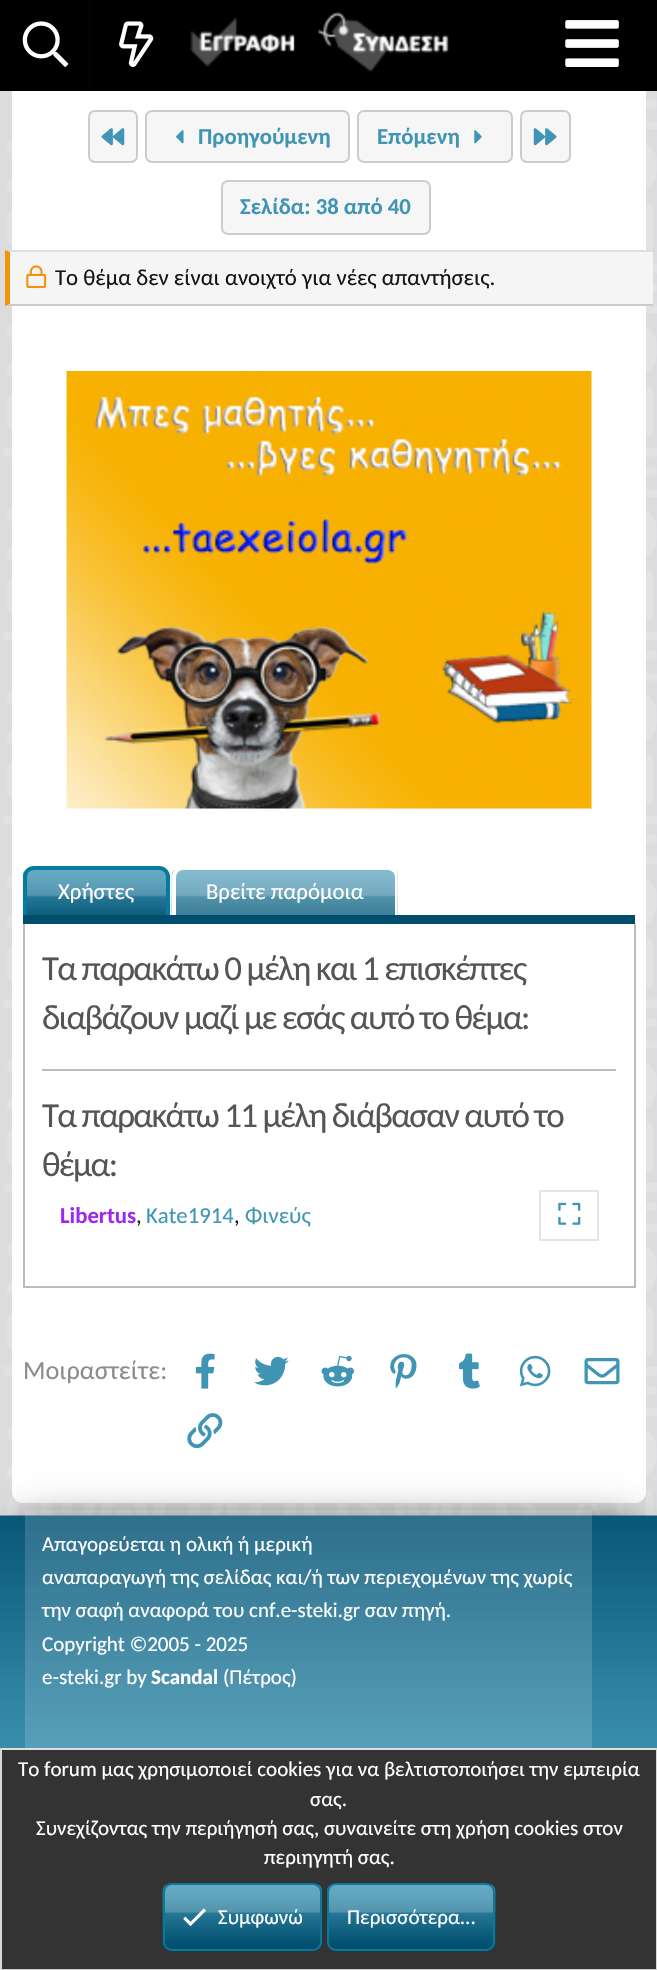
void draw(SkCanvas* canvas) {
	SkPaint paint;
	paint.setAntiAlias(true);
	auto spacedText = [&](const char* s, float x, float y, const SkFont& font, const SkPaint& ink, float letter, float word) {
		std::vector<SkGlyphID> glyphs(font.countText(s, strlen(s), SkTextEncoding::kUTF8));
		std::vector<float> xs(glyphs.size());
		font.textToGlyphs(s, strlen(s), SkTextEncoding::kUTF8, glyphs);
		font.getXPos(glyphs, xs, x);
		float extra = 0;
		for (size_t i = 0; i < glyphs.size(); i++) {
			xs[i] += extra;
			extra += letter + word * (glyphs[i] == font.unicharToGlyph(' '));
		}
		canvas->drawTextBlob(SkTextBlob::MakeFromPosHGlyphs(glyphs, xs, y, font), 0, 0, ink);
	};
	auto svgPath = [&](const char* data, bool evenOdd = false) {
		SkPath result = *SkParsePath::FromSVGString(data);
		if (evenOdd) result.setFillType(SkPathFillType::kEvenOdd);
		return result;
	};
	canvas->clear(0xffffffff);
	canvas->drawImageRect(SkImages::DeferredFromEncodedData(SkData::MakeFromFileName("img1.png")), SkRect::MakeXYWH(0, 91, 657, 1425), SkSamplingOptions());
	paint.setColor(0xffffffff);
	canvas->drawRoundRect(SkRect::MakeXYWH(12, -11, 634, 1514), 11, 11, paint);
	paint.setColor(0xff000000);
	canvas->drawRect(SkRect::MakeXYWH(0, 0, 657, 91), paint);
	canvas->drawImageRect(SkImages::DeferredFromEncodedData(SkData::MakeFromFileName("img2.png")), SkRect::MakeXYWH(22, 21, 47, 46), SkSamplingOptions());
	paint.setColor(0xff030303);
	canvas->drawRect(SkRect::MakeXYWH(89, 0, 2, 89), paint);
	canvas->drawImageRect(SkImages::DeferredFromEncodedData(SkData::MakeFromFileName("img3.png")), SkRect::MakeXYWH(119, 21, 35, 46), SkSamplingOptions());
	canvas->drawImageRect(SkImages::DeferredFromEncodedData(SkData::MakeFromFileName("img4.png")), SkRect::MakeXYWH(190, 17, 105, 50), SkSamplingOptions());
	canvas->drawImageRect(SkImages::DeferredFromEncodedData(SkData::MakeFromFileName("img5.png")), SkRect::MakeXYWH(318, 12, 131, 60), SkSamplingOptions());
	canvas->drawImageRect(SkImages::DeferredFromEncodedData(SkData::MakeFromFileName("img6.png")), SkRect::MakeXYWH(565, 20, 54, 47), SkSamplingOptions());
	paint.setColor(0xfff6f6f7);
	canvas->drawRoundRect(SkRect::MakeXYWH(89, 111, 48, 51), 6, 6, paint);
	paint.setStroke(true);
	paint.setStrokeWidth(2);
	paint.setColor(0xffcccccc);
	canvas->drawRoundRect(SkRect::MakeXYWH(89, 111, 48, 51), 6, 6, paint);
	canvas->drawImageRect(SkImages::DeferredFromEncodedData(SkData::MakeFromFileName("img7.png")), SkRect::MakeXYWH(101, 128, 24, 18), SkSamplingOptions());
	paint.setStroke(false);
	paint.setColor(0xfff6f6f7);
	canvas->drawRoundRect(SkRect::MakeXYWH(146, 111, 203, 51), 6, 6, paint);
	paint.setStroke(true);
	paint.setColor(0xffcccccc);
	canvas->drawRoundRect(SkRect::MakeXYWH(146, 111, 203, 51), 6, 6, paint);
	canvas->drawImageRect(SkImages::DeferredFromEncodedData(SkData::MakeFromFileName("img8.png")), SkRect::MakeXYWH(176, 130, 8, 14), SkSamplingOptions());
	SkFont f1(fontMgr->matchFamilyStyle("Carlito", SkFontStyle::Bold()), 22.75);
	f1.setSubpixel(true);
	paint.setStroke(false);
	paint.setColor(0xff4095b4);
	canvas->drawString("Προηγούμενη", 198, 144, f1, paint);
	paint.setColor(0xfff6f6f7);
	canvas->drawRoundRect(SkRect::MakeXYWH(358, 111, 154, 51), 6, 6, paint);
	paint.setStroke(true);
	paint.setColor(0xffcccccc);
	canvas->drawRoundRect(SkRect::MakeXYWH(358, 111, 154, 51), 6, 6, paint);
	paint.setStroke(false);
	paint.setColor(0xff4095b4);
	canvas->drawString("Επόμενη", 377, 144, f1, paint);
	canvas->drawImageRect(SkImages::DeferredFromEncodedData(SkData::MakeFromFileName("img9.png")), SkRect::MakeXYWH(474, 130, 8, 14), SkSamplingOptions());
	paint.setColor(0xfff6f6f7);
	canvas->drawRoundRect(SkRect::MakeXYWH(521, 111, 49, 51), 6, 6, paint);
	paint.setStroke(true);
	paint.setColor(0xffcccccc);
	canvas->drawRoundRect(SkRect::MakeXYWH(521, 111, 49, 51), 6, 6, paint);
	canvas->drawImageRect(SkImages::DeferredFromEncodedData(SkData::MakeFromFileName("img10.png")), SkRect::MakeXYWH(533, 128, 24, 18), SkSamplingOptions());
	paint.setStroke(false);
	paint.setColor(0xfff6f6f7);
	canvas->drawRoundRect(SkRect::MakeXYWH(222, 181, 208, 53), 6, 6, paint);
	paint.setStroke(true);
	paint.setColor(0xffcccccc);
	canvas->drawRoundRect(SkRect::MakeXYWH(222, 181, 208, 53), 6, 6, paint);
	paint.setStroke(false);
	paint.setColor(0xff4095b4);
	canvas->drawString("Σελίδα: 38 από 40", 240, 214, f1, paint);
	paint.setColor(0xfff5f5f5);
	canvas->drawRect(SkRect::MakeXYWH(5, 250, 648, 56), paint);
	paint.setColor(0xffdfdfdf);
	canvas->drawPath(svgPath("M5 250H653V252H10Z"), paint);
	paint.setColor(0xffcbcbcb);
	canvas->drawPath(svgPath("M653 306H5L10 304H653Z"), paint);
	paint.setColor(0xfff2930d);
	canvas->drawPath(svgPath("M5 306V250L10 252V304Z"), paint);
	canvas->drawImageRect(SkImages::DeferredFromEncodedData(SkData::MakeFromFileName("img11.png")), SkRect::MakeXYWH(26, 265, 21, 24), SkSamplingOptions());
	SkFont f2(fontMgr->matchFamilyStyle("Carlito", SkFontStyle::Normal()), 22.75);
	f2.setSubpixel(true);
	paint.setColor(0xff141414);
	canvas->drawString("Το θέμα δεν είναι ανοιχτό για νέες απαντήσεις.", 55, 285, f2, paint);
	canvas->drawImageRect(SkImages::DeferredFromEncodedData(SkData::MakeFromFileName("img12.png")), SkRect::MakeXYWH(66, 371, 526, 438), SkSamplingOptions());
	paint.setColor(0xff004d6d);
	canvas->drawRect(SkRect::MakeXYWH(23, 915, 612, 9), paint);
	canvas->drawImageRect(SkImages::DeferredFromEncodedData(SkData::MakeFromFileName("img13.png")), SkRect::MakeXYWH(23, 869, 147, 46), SkSamplingOptions());
	canvas->save();
	canvas->clipRect(SkRect::MakeXYWH(23, 866, 374, 49));
	paint.setStroke(true);
	paint.setStrokeWidth(4);
	paint.setColor(0xff057b9e);
	canvas->drawPath(svgPath("M34 868H159C164 868 168 872 168 877V917H25V877C25 872 29 868 34 868Z"), paint);
	canvas->restore();
	paint.setStroke(false);
	paint.setColor(0xffffffff);
	canvas->drawString("Χρήστες", 58, 899, f2, paint);
	canvas->drawImageRect(SkImages::DeferredFromEncodedData(SkData::MakeFromFileName("img14.png")), SkRect::MakeXYWH(171, 869, 227, 46), SkSamplingOptions());
	canvas->save();
	canvas->clipRect(SkRect::MakeXYWH(23, 866, 374, 49));
	paint.setStroke(true);
	canvas->drawPath(svgPath("M183 868H388C393 868 397 872 397 877V917H174V877C174 872 178 868 183 868Z"), paint);
	canvas->restore();
	paint.setStroke(false);
	canvas->drawString("Βρείτε παρόμοια", 206, 899, f2, paint);
	paint.setColor(0xffbbbbbb);
	canvas->drawRect(SkRect::MakeXYWH(634, 924, 2, 364), paint);
	canvas->drawRect(SkRect::MakeXYWH(23, 1286, 612, 2), paint);
	canvas->drawRect(SkRect::MakeXYWH(23, 924, 2, 364), paint);
	canvas->drawRect(SkRect::MakeXYWH(42, 1069, 574, 2), paint);
	SkFont f3(fontMgr->matchFamilyStyle("Carlito", SkFontStyle::Normal()), 35);
	f3.setSubpixel(true);
	paint.setColor(0xff555555);
	spacedText("Τα παρακάτω 0 μέλη και 1 επισκέπτες", 42, 980, f3, paint, -1.75, 0);
	spacedText("διαβάζουν μαζί με εσάς αυτό το θέμα:", 42, 1029, f3, paint, -1.75, 0);
	spacedText("Tα παρακάτω 11 μέλη διάβασαν αυτό το", 42, 1127, f3, paint, -1.75, 0);
	spacedText("θέμα:", 42, 1176, f3, paint, -1.75, 0);
	paint.setColor(0xff9e28ee);
	canvas->drawString("Libertus", 60, 1223, f1, paint);
	paint.setColor(0xff141414);
	canvas->drawString(",", 136, 1223, f2, paint);
	paint.setColor(0xff4095b4);
	canvas->drawString("Kate1914", 146, 1223, f2, paint);
	paint.setColor(0xff141414);
	canvas->drawString(",", 234, 1223, f2, paint);
	paint.setColor(0xff4095b4);
	canvas->drawString("Φινεύς", 245, 1223, f2, paint);
	paint.setStroke(true);
	paint.setStrokeWidth(2);
	paint.setColor(0xffe5e5e5);
	canvas->drawRect(SkRect::MakeXYWH(540, 1191, 58, 49), paint);
	canvas->drawImageRect(SkImages::DeferredFromEncodedData(SkData::MakeFromFileName("img15.png")), SkRect::MakeXYWH(558, 1202, 23, 23), SkSamplingOptions());
	SkFont f4(fontMgr->matchFamilyStyle("Carlito", SkFontStyle::Normal()), 26.25);
	f4.setSubpixel(true);
	paint.setStroke(false);
	paint.setColor(0xff8c8c8c);
	canvas->drawString("Μοιραστείτε:", 23, 1379, f4, paint);
	canvas->drawImageRect(SkImages::DeferredFromEncodedData(SkData::MakeFromFileName("img16.png")), SkRect::MakeXYWH(195, 1353, 20, 36), SkSamplingOptions());
	canvas->drawImageRect(SkImages::DeferredFromEncodedData(SkData::MakeFromFileName("img17.png")), SkRect::MakeXYWH(254, 1356, 35, 30), SkSamplingOptions());
	canvas->drawImageRect(SkImages::DeferredFromEncodedData(SkData::MakeFromFileName("img18.png")), SkRect::MakeXYWH(321, 1355, 33, 32), SkSamplingOptions());
	canvas->drawImageRect(SkImages::DeferredFromEncodedData(SkData::MakeFromFileName("img19.png")), SkRect::MakeXYWH(390, 1354, 27, 35), SkSamplingOptions());
	canvas->drawImageRect(SkImages::DeferredFromEncodedData(SkData::MakeFromFileName("img20.png")), SkRect::MakeXYWH(459, 1353, 21, 36), SkSamplingOptions());
	canvas->drawImageRect(SkImages::DeferredFromEncodedData(SkData::MakeFromFileName("img21.png")), SkRect::MakeXYWH(519, 1355, 32, 32), SkSamplingOptions());
	canvas->drawImageRect(SkImages::DeferredFromEncodedData(SkData::MakeFromFileName("img22.png")), SkRect::MakeXYWH(584, 1358, 36, 27), SkSamplingOptions());
	canvas->drawImageRect(SkImages::DeferredFromEncodedData(SkData::MakeFromFileName("img23.png")), SkRect::MakeXYWH(187, 1413, 36, 36), SkSamplingOptions());
	paint.setColor(0xbf000000);
	paint.setMaskFilter(SkMaskFilter::MakeBlur(kNormal_SkBlurStyle, 20));
	canvas->drawRect(SkRect::MakeXYWH(23, 1526, 612, 238), paint);
	paint.setMaskFilter(nullptr);
	canvas->drawImageRect(SkImages::DeferredFromEncodedData(SkData::MakeFromFileName("img24.png")), SkRect::MakeXYWH(0, 1515, 657, 233), SkSamplingOptions());
	paint.setColor(0x26ffffff);
	canvas->drawRect(SkRect::MakeXYWH(25, 1510, 567, 238), paint);
	SkFont f5(fontMgr->matchFamilyStyle("Carlito", SkFontStyle::Normal()), 21);
	f5.setSubpixel(true);
	paint.setColor(0xffffffff);
	canvas->drawString("Απαγορεύεται η ολική ή μερική", 42, 1551, f5, paint);
	canvas->drawString("αναπαραγωγή της σελίδας και/ή των περιεχομένων της χωρίς", 42, 1584, f5, paint);
	canvas->drawString("την σαφή αναφορά του cnf.e-steki.gr σαν πηγή.", 42, 1617, f5, paint);
	canvas->drawString("Copyright ©2005 - 2025", 42, 1651, f5, paint);
	canvas->drawString("e-steki.gr by", 42, 1684, f5, paint);
	SkFont f6(fontMgr->matchFamilyStyle("Carlito", SkFontStyle::Bold()), 21);
	f6.setSubpixel(true);
	canvas->drawString("Scandal", 151, 1684, f6, paint);
	canvas->drawString("(Πέτρος)", 223, 1684, f5, paint);
	paint.setColor(0xff333333);
	canvas->drawRect(SkRect::MakeXYWH(2, 1750, 654, 219), paint);
	paint.setColor(0xffdfdfdf);
	canvas->drawRect(SkRect::MakeXYWH(0, 1748, 657, 2), paint);
	paint.setColor(0xffd8d8d8);
	canvas->drawRect(SkRect::MakeXYWH(656, 1748, 1, 222), paint);
	paint.setColor(0xffcbcbcb);
	canvas->drawRect(SkRect::MakeXYWH(0, 1969, 657, 1), paint);
	paint.setColor(0xffd8d8d8);
	canvas->drawRect(SkRect::MakeXYWH(0, 1748, 2, 222), paint);
	paint.setColor(0xffffffff);
	canvas->drawString("Το forum μας χρησιμοποιεί cookies για να βελτιστοποιήσει την εμπειρία", 18, 1776, f5, paint);
	canvas->drawString("σας.", 310, 1806, f5, paint);
	canvas->drawString("Συνεχίζοντας την περιήγησή σας, συναινείτε στη χρήση cookies στον", 36, 1835, f5, paint);
	canvas->drawString("περιηγητή σας.", 264, 1864, f5, paint);
	canvas->drawImageRect(SkImages::DeferredFromEncodedData(SkData::MakeFromFileName("img25.png")), SkRect::MakeXYWH(162, 1884, 161, 66), SkSamplingOptions());
	paint.setStroke(true);
	paint.setColor(0xff057b9e);
	canvas->drawRoundRect(SkRect::MakeXYWH(164, 1884, 157, 66), 8, 8, paint);
	canvas->drawImageRect(SkImages::DeferredFromEncodedData(SkData::MakeFromFileName("img26.png")), SkRect::MakeXYWH(183, 1908, 23, 18), SkSamplingOptions());
	paint.setStroke(false);
	paint.setColor(0xffffffff);
	canvas->drawString("Συμφωνώ", 218, 1924, f5, paint);
	canvas->drawImageRect(SkImages::DeferredFromEncodedData(SkData::MakeFromFileName("img27.png")), SkRect::MakeXYWH(327, 1884, 169, 66), SkSamplingOptions());
	paint.setStroke(true);
	paint.setColor(0xff057b9e);
	canvas->drawRoundRect(SkRect::MakeXYWH(328, 1884, 166, 66), 8, 8, paint);
	paint.setStroke(false);
	paint.setColor(0xffffffff);
	canvas->drawString("Περισσότερα...", 347, 1924, f5, paint);
}
